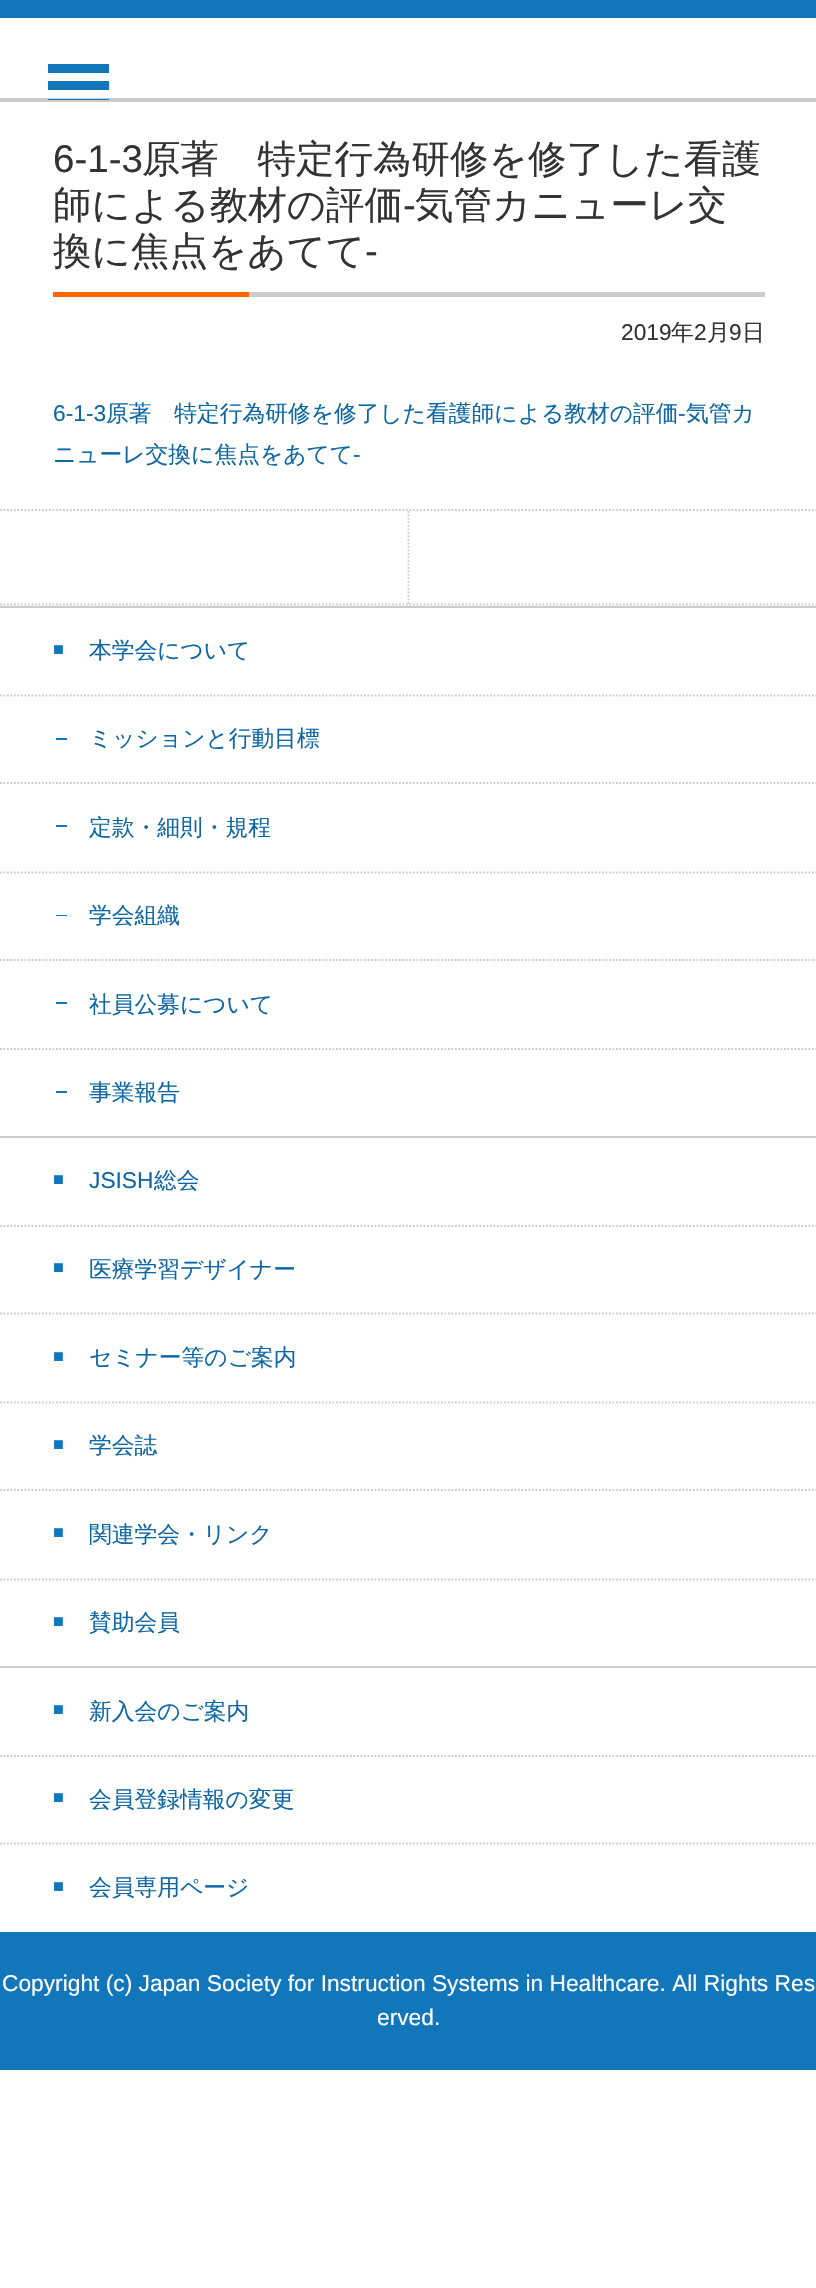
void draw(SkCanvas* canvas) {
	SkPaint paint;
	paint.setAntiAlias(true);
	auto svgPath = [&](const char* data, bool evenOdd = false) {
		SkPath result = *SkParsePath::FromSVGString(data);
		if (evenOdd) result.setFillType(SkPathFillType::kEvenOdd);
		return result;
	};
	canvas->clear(0xffffffff);
	paint.setColor(0xff1177ba);
	canvas->drawRect(SkRect::MakeXYWH(0, 0, 816, 18), paint);
	paint.setColor(0xffcccccc);
	canvas->drawRect(SkRect::MakeXYWH(0, 98, 816, 4), paint);
	canvas->save();
	canvas->clipRect(SkRect::MakeXYWH(35, 44, 88, 56));
	paint.setColor(0xff1177ba);
	canvas->drawPath(svgPath("M109 73V64H48V73ZM109 90V81H48V90ZM109 108V99H48V108Z"), paint);
	canvas->restore();
	paint.setColor(0xffcccccc);
	canvas->drawRect(SkRect::MakeXYWH(249, 292, 516, 5), paint);
	SkFont f1(fontMgr->matchFamilyStyle("Liberation Sans", SkFontStyle::Normal()), 38.5);
	f1.setSubpixel(true);
	paint.setColor(0xff333333);
	canvas->drawString("6-1-3", 53, 172, f1, paint);
	SkFont f2(fontMgr->matchFamilyStyle("WenQuanYi Zen Hei", SkFontStyle(500, SkFontStyle::kNormal_Width, SkFontStyle::kUpright_Slant)), 38.5);
	f2.setSubpixel(true);
	canvas->drawString("原著　特定行為研修を修了した看護", 142, 172, f2, paint);
	canvas->drawString("師による教材の評価", 53, 218, f2, paint);
	canvas->drawString("-", 403, 218, f1, paint);
	canvas->drawString("気管カニューレ交", 415, 218, f2, paint);
	canvas->drawString("換に焦点をあてて", 53, 264, f2, paint);
	canvas->drawString("-", 365, 264, f1, paint);
	paint.setColor(0xffff6600);
	canvas->drawRect(SkRect::MakeXYWH(53, 292, 196, 5), paint);
	SkFont f3(fontMgr->matchFamilyStyle("Liberation Sans", SkFontStyle::Normal()), 22.75);
	f3.setSubpixel(true);
	paint.setColor(0xff333333);
	canvas->drawString("2019", 621, 340, f3, paint);
	SkFont f4(fontMgr->matchFamilyStyle("WenQuanYi Zen Hei", SkFontStyle(500, SkFontStyle::kNormal_Width, SkFontStyle::kUpright_Slant)), 22.75);
	f4.setSubpixel(true);
	canvas->drawString("年", 671, 340, f4, paint);
	canvas->drawString("2", 694, 340, f3, paint);
	canvas->drawString("月", 707, 340, f4, paint);
	canvas->drawString("9", 729, 340, f3, paint);
	canvas->drawString("日", 742, 340, f4, paint);
	paint.setColor(0xff0e67a3);
	canvas->drawString("6-1-3", 53, 421, f3, paint);
	canvas->drawString("原著　特定行為研修を修了した看護師による教材の評価", 106, 421, f4, paint);
	canvas->drawString("-", 678, 421, f3, paint);
	canvas->drawString("気管カ", 686, 421, f4, paint);
	canvas->drawString("ニューレ交換に焦点をあてて", 53, 462, f4, paint);
	canvas->drawString("-", 353, 462, f3, paint);
	paint.setStroke(true);
	paint.setStrokeWidth(1.8);
	paint.setColor(0xffcccccc);
	paint.setPathEffect(SkDashPathEffect::Make({{1.75f, 1.75f}}, 0));
	canvas->drawPath(svgPath("M0 510H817"), paint);
	paint.setPathEffect(nullptr);
	paint.setPathEffect(SkDashPathEffect::Make({{1.75f, 1.75f}}, 0));
	canvas->drawPath(svgPath("M0 604.5H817"), paint);
	paint.setPathEffect(nullptr);
	paint.setPathEffect(SkDashPathEffect::Make({{1.75f, 1.75f}}, 0));
	canvas->drawPath(svgPath("M408.5 511V604"), paint);
	paint.setPathEffect(nullptr);
	paint.setStroke(false);
	canvas->drawRect(SkRect::MakeXYWH(0, 606, 816, 2), paint);
	SkFont f5(fontMgr->matchFamilyStyle("Liberation Sans", SkFontStyle::Normal()), 18);
	f5.setSubpixel(true);
	paint.setColor(0xff1177ba);
	canvas->drawString("■", 53, 655, f5, paint);
	paint.setColor(0xff0e67a3);
	canvas->drawString("本学会について", 89, 658, f4, paint);
	paint.setStroke(true);
	paint.setColor(0xffcccccc);
	paint.setPathEffect(SkDashPathEffect::Make({{1.75f, 1.75f}}, 0));
	canvas->drawPath(svgPath("M0 695.5H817"), paint);
	paint.setPathEffect(nullptr);
	paint.setPathEffect(SkDashPathEffect::Make({{1.75f, 1.75f}}, 0));
	canvas->drawPath(svgPath("M0 783H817"), paint);
	paint.setPathEffect(nullptr);
	paint.setStroke(false);
	paint.setColor(0xff1177ba);
	canvas->drawRect(SkRect::MakeXYWH(56, 738, 11, 2), paint);
	paint.setColor(0xff0e67a3);
	canvas->drawString("ミッションと行動目標", 89, 746, f4, paint);
	paint.setStroke(true);
	paint.setColor(0xffcccccc);
	paint.setPathEffect(SkDashPathEffect::Make({{1.75f, 1.75f}}, 0));
	canvas->drawPath(svgPath("M0 872.5H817"), paint);
	paint.setPathEffect(nullptr);
	paint.setStroke(false);
	paint.setColor(0xff1177ba);
	canvas->drawRect(SkRect::MakeXYWH(56, 825, 11, 2), paint);
	paint.setColor(0xff0e67a3);
	canvas->drawString("定款・細則・規程", 89, 835, f4, paint);
	paint.setStroke(true);
	paint.setColor(0xffcccccc);
	paint.setPathEffect(SkDashPathEffect::Make({{1.75f, 1.75f}}, 0));
	canvas->drawPath(svgPath("M0 960H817"), paint);
	paint.setPathEffect(nullptr);
	paint.setStroke(false);
	paint.setColor(0xff1177ba);
	canvas->drawRect(SkRect::MakeXYWH(56, 915, 11, 1), paint);
	paint.setColor(0xff0e67a3);
	canvas->drawString("学会組織", 89, 923, f4, paint);
	paint.setStroke(true);
	paint.setColor(0xffcccccc);
	paint.setPathEffect(SkDashPathEffect::Make({{1.75f, 1.75f}}, 0));
	canvas->drawPath(svgPath("M0 1049H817"), paint);
	paint.setPathEffect(nullptr);
	paint.setStroke(false);
	paint.setColor(0xff1177ba);
	canvas->drawRect(SkRect::MakeXYWH(56, 1002, 11, 2), paint);
	paint.setColor(0xff0e67a3);
	canvas->drawString("社員公募について", 89, 1012, f4, paint);
	paint.setColor(0xff1177ba);
	canvas->drawRect(SkRect::MakeXYWH(56, 1091, 11, 2), paint);
	paint.setColor(0xff0e67a3);
	canvas->drawString("事業報告", 89, 1100, f4, paint);
	paint.setColor(0xffcccccc);
	canvas->drawRect(SkRect::MakeXYWH(0, 1136, 816, 2), paint);
	paint.setStroke(true);
	paint.setPathEffect(SkDashPathEffect::Make({{1.75f, 1.75f}}, 0));
	canvas->drawPath(svgPath("M0 1226H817"), paint);
	paint.setPathEffect(nullptr);
	paint.setStroke(false);
	paint.setColor(0xff1177ba);
	canvas->drawString("■", 53, 1185, f5, paint);
	paint.setColor(0xff0e67a3);
	canvas->drawString("JSISH", 89, 1188, f3, paint);
	canvas->drawString("総会", 154, 1188, f4, paint);
	paint.setStroke(true);
	paint.setColor(0xffcccccc);
	paint.setPathEffect(SkDashPathEffect::Make({{1.75f, 1.75f}}, 0));
	canvas->drawPath(svgPath("M0 1313.5H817"), paint);
	paint.setPathEffect(nullptr);
	paint.setStroke(false);
	paint.setColor(0xff1177ba);
	canvas->drawString("■", 53, 1273, f5, paint);
	paint.setColor(0xff0e67a3);
	canvas->drawString("医療学習デザイナー", 89, 1277, f4, paint);
	paint.setStroke(true);
	paint.setColor(0xffcccccc);
	paint.setPathEffect(SkDashPathEffect::Make({{1.75f, 1.75f}}, 0));
	canvas->drawPath(svgPath("M0 1402.5H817"), paint);
	paint.setPathEffect(nullptr);
	paint.setStroke(false);
	paint.setColor(0xff1177ba);
	canvas->drawString("■", 53, 1362, f5, paint);
	paint.setColor(0xff0e67a3);
	canvas->drawString("セミナー等のご案内", 89, 1365, f4, paint);
	paint.setStroke(true);
	paint.setColor(0xffcccccc);
	paint.setPathEffect(SkDashPathEffect::Make({{1.75f, 1.75f}}, 0));
	canvas->drawPath(svgPath("M0 1490H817"), paint);
	paint.setPathEffect(nullptr);
	paint.setStroke(false);
	paint.setColor(0xff1177ba);
	canvas->drawString("■", 53, 1450, f5, paint);
	paint.setColor(0xff0e67a3);
	canvas->drawString("学会誌", 89, 1453, f4, paint);
	paint.setStroke(true);
	paint.setColor(0xffcccccc);
	paint.setPathEffect(SkDashPathEffect::Make({{1.75f, 1.75f}}, 0));
	canvas->drawPath(svgPath("M0 1579.5H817"), paint);
	paint.setPathEffect(nullptr);
	paint.setStroke(false);
	paint.setColor(0xff1177ba);
	canvas->drawString("■", 53, 1538, f5, paint);
	paint.setColor(0xff0e67a3);
	canvas->drawString("関連学会・リンク", 89, 1542, f4, paint);
	paint.setColor(0xff1177ba);
	canvas->drawString("■", 53, 1627, f5, paint);
	paint.setColor(0xff0e67a3);
	canvas->drawString("賛助会員", 89, 1630, f4, paint);
	paint.setColor(0xffcccccc);
	canvas->drawRect(SkRect::MakeXYWH(0, 1666, 816, 2), paint);
	paint.setStroke(true);
	paint.setPathEffect(SkDashPathEffect::Make({{1.75f, 1.75f}}, 0));
	canvas->drawPath(svgPath("M0 1756H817"), paint);
	paint.setPathEffect(nullptr);
	paint.setStroke(false);
	paint.setColor(0xff1177ba);
	canvas->drawString("■", 53, 1715, f5, paint);
	paint.setColor(0xff0e67a3);
	canvas->drawString("新入会のご案内", 89, 1719, f4, paint);
	paint.setStroke(true);
	paint.setColor(0xffcccccc);
	paint.setPathEffect(SkDashPathEffect::Make({{1.75f, 1.75f}}, 0));
	canvas->drawPath(svgPath("M0 1843.5H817"), paint);
	paint.setPathEffect(nullptr);
	paint.setStroke(false);
	paint.setColor(0xff1177ba);
	canvas->drawString("■", 53, 1803, f5, paint);
	paint.setColor(0xff0e67a3);
	canvas->drawString("会員登録情報の変更", 89, 1807, f4, paint);
	paint.setColor(0xff1177ba);
	canvas->drawString("■", 53, 1892, f5, paint);
	paint.setColor(0xff0e67a3);
	canvas->drawString("会員専用ページ", 89, 1895, f4, paint);
	paint.setColor(0xff1177ba);
	canvas->drawRect(SkRect::MakeXYWH(0, 1932, 816, 138), paint);
	paint.setColor(0xffffffff);
	canvas->drawString("Copyright (c) Japan Society for Instruction Systems in Healthcare. All Rights Res", 2, 1991, f3, paint);
	canvas->drawString("erved.", 377, 2025, f3, paint);
}
